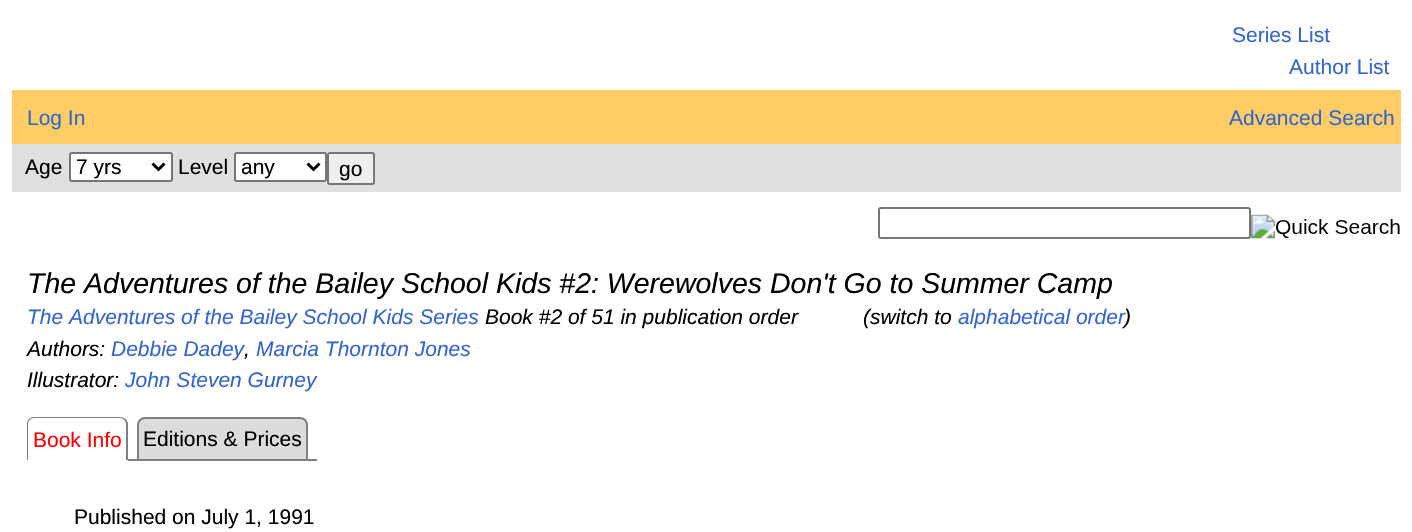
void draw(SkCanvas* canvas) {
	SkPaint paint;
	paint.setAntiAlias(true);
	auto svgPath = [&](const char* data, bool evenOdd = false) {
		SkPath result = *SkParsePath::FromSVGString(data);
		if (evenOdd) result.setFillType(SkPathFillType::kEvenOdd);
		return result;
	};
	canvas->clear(0xffffffff);
	SkFont f1(fontMgr->matchFamilyStyle("Liberation Sans", SkFontStyle::Normal()), 21);
	f1.setSubpixel(true);
	paint.setColor(0xff3366cc);
	canvas->drawString("Series List", 1232, 42, f1, paint);
	canvas->drawString("Author List", 1289, 74, f1, paint);
	paint.setColor(0xffffcc66);
	canvas->drawRect(SkRect::MakeXYWH(12, 90, 1389, 54), paint);
	paint.setColor(0xff3366cc);
	canvas->drawString("Log In", 27, 125, f1, paint);
	canvas->drawString("Advanced Search", 1229, 125, f1, paint);
	paint.setColor(0xffe0e0e0);
	canvas->drawRect(SkRect::MakeXYWH(12, 144, 1389, 48), paint);
	paint.setColor(0xff000000);
	canvas->drawString("Age", 25, 174, f1, paint);
	paint.setColor(0xffffffff);
	canvas->drawRoundRect(SkRect::MakeXYWH(70, 153, 102, 28), 2, 2, paint);
	paint.setStroke(true);
	paint.setStrokeWidth(2);
	paint.setColor(0xff767676);
	canvas->drawRoundRect(SkRect::MakeXYWH(70, 153, 102, 28), 2, 2, paint);
	paint.setStrokeWidth(3);
	paint.setColor(0xff000000);
	canvas->drawPath(svgPath("M152.5 163.5L158.5 169.5L164.5 163.5"), paint);
	paint.setStroke(false);
	canvas->drawString("7 yrs", 76, 174, f1, paint);
	canvas->drawString("Level", 178, 174, f1, paint);
	paint.setColor(0xffffffff);
	canvas->drawRoundRect(SkRect::MakeXYWH(235, 153, 91, 28), 2, 2, paint);
	paint.setStroke(true);
	paint.setStrokeWidth(2);
	paint.setColor(0xff767676);
	canvas->drawRoundRect(SkRect::MakeXYWH(235, 153, 91, 28), 2, 2, paint);
	paint.setStrokeWidth(3);
	paint.setColor(0xff000000);
	canvas->drawPath(svgPath("M307.5 163.5L313.5 169.5L319.5 163.5"), paint);
	paint.setStroke(false);
	canvas->drawString("any", 241, 174, f1, paint);
	paint.setColor(0xffefefef);
	canvas->drawRoundRect(SkRect::MakeXYWH(328, 153, 46, 31), 2, 2, paint);
	paint.setStroke(true);
	paint.setStrokeWidth(2);
	paint.setColor(0xff767676);
	canvas->drawRoundRect(SkRect::MakeXYWH(328, 153, 46, 31), 2, 2, paint);
	paint.setStroke(false);
	paint.setColor(0xff000000);
	canvas->drawString("go", 339, 176, f1, paint);
	paint.setStroke(true);
	paint.setColor(0xff767676);
	canvas->drawRoundRect(SkRect::MakeXYWH(879, 208, 371, 30), 2, 2, paint);
	canvas->drawImageRect(SkImages::DeferredFromEncodedData(SkData::MakeFromFileName("img1.png")), SkRect::MakeXYWH(1251, 214, 149, 25), SkSamplingOptions());
	SkFont f2(fontMgr->matchFamilyStyle("Liberation Sans", SkFontStyle::Italic()), 28.5);
	f2.setSubpixel(true);
	paint.setStroke(false);
	paint.setColor(0xff000000);
	canvas->drawString("The Adventures of the Bailey School Kids #2: Werewolves Don't Go to Summer Camp", 27, 293, f2, paint);
	SkFont f3(fontMgr->matchFamilyStyle("Liberation Sans", SkFontStyle::Italic()), 21);
	f3.setSubpixel(true);
	paint.setColor(0xff3366cc);
	canvas->drawString("The Adventures of the Bailey School Kids Series", 27, 324, f3, paint);
	paint.setColor(0xff000000);
	canvas->drawString("Book #2 of 51 in publication order", 485, 324, f3, paint);
	canvas->drawString("(switch to", 863, 324, f3, paint);
	paint.setColor(0xff3366cc);
	canvas->drawString("alphabetical order", 958, 324, f3, paint);
	paint.setColor(0xff000000);
	canvas->drawString(")", 1124, 324, f3, paint);
	canvas->drawString("Authors:", 27, 356, f3, paint);
	paint.setColor(0xff3366cc);
	canvas->drawString("Debbie Dadey", 111, 356, f3, paint);
	canvas->drawString("Marcia Thornton Jones", 256, 356, f3, paint);
	paint.setColor(0xff000000);
	canvas->drawString(",", 244, 356, f3, paint);
	canvas->drawString("Illustrator:", 27, 387, f3, paint);
	paint.setColor(0xff3366cc);
	canvas->drawString("John Steven Gurney", 125, 387, f3, paint);
	paint.setColor(0xff808080);
	canvas->drawPath(svgPath("M34 417H120C124 417 128 420 128 424V460H27V424C27 420 30 417 34 417ZM34 418H120C123 418 126 421 126 424V460H28V424C28 421 31 418 34 418Z", true), paint);
	paint.setColor(0xffff0000);
	canvas->drawString("Book Info", 33, 447, f1, paint);
	paint.setColor(0xffdcdcdc);
	canvas->drawPath(svgPath("M145 418H300C304 418 307 421 307 425V460H138V425C138 421 141 418 145 418Z"), paint);
	paint.setStroke(true);
	paint.setColor(0xff808080);
	canvas->drawPath(svgPath("M145 418H300C304 418 307 421 307 425V460H138V425C138 421 141 418 145 418Z"), paint);
	paint.setStroke(false);
	paint.setColor(0xff000000);
	canvas->drawString("Editions & Prices", 143, 446, f1, paint);
	paint.setColor(0xff808080);
	canvas->drawRect(SkRect::MakeXYWH(128, 459, 9, 2), paint);
	canvas->drawRect(SkRect::MakeXYWH(308, 459, 9, 2), paint);
	paint.setColor(0xff000000);
	canvas->drawString("Published on July 1, 1991", 74, 524, f1, paint);
}
